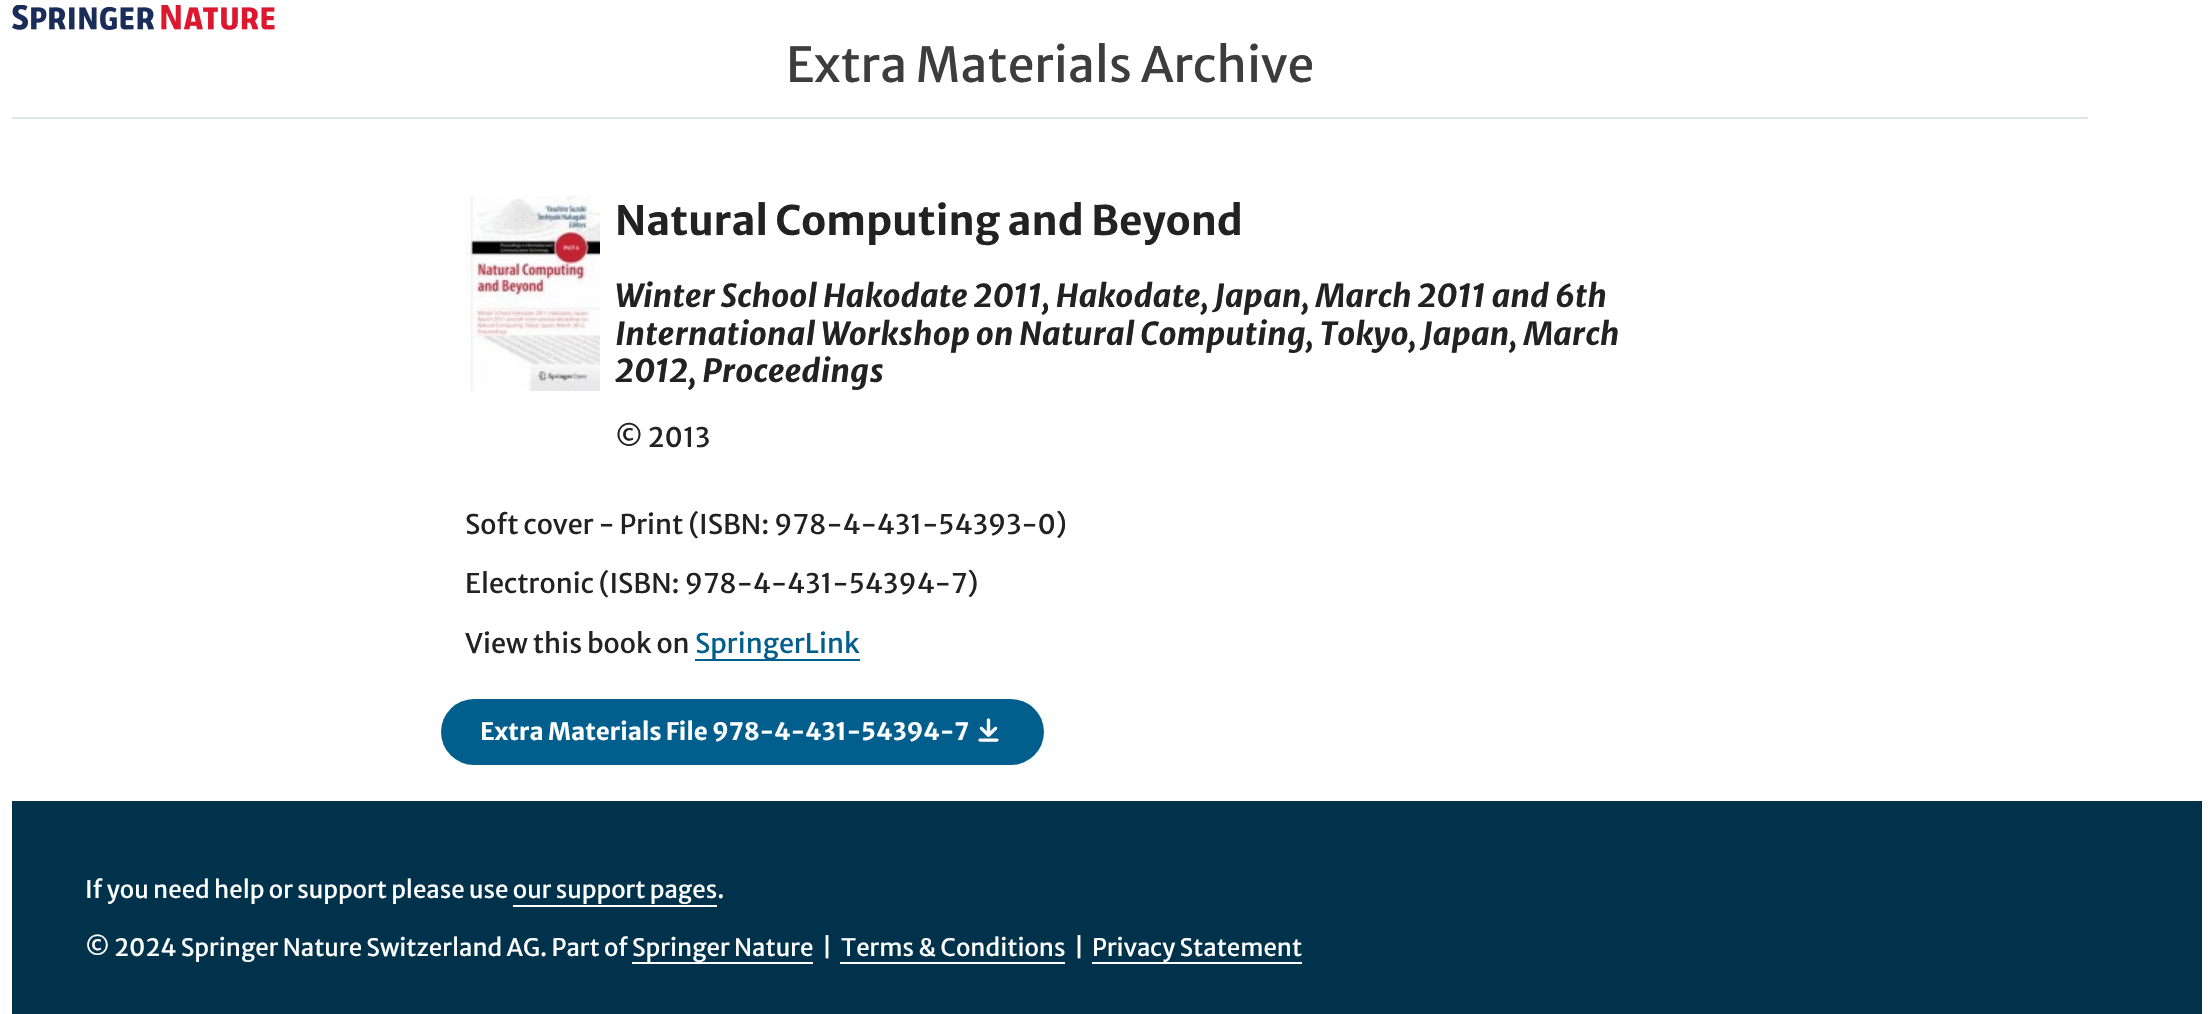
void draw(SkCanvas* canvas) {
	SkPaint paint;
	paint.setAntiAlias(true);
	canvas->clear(0xffffffff);
	paint.setColor(0xffdde7ea);
	canvas->drawRect(SkRect::MakeXYWH(12, 117, 2076, 2), paint);
	canvas->drawImageRect(SkImages::DeferredFromEncodedData(SkData::MakeFromFileName("img1.png")), SkRect::MakeXYWH(12, 5, 263, 25), SkSamplingOptions());
	SkFont f1(fontMgr->matchFamilyStyle("Merriweather Sans", SkFontStyle::Normal()), 48);
	f1.setSubpixel(true);
	paint.setColor(0xff3d3d3d);
	canvas->drawString("Extra Materials Archive", 786, 82, f1, paint);
	canvas->drawImageRect(SkImages::DeferredFromEncodedData(SkData::MakeFromFileName("img2.png")), SkRect::MakeXYWH(465, 196, 135, 195), SkSamplingOptions());
	SkFont f2(fontMgr->matchFamilyStyle("Merriweather Sans", SkFontStyle::Bold()), 40.5);
	f2.setSubpixel(true);
	paint.setColor(0xff222222);
	canvas->drawString("Natural Computing and Beyond", 615, 235, f2, paint);
	SkFont f3(fontMgr->matchFamilyStyle("Merriweather Sans", SkFontStyle::BoldItalic()), 31.6);
	f3.setSubpixel(true);
	canvas->drawString("Winter School Hakodate 2011, Hakodate, Japan, March 2011 and 6th", 615, 307, f3, paint);
	canvas->drawString("International Workshop on Natural Computing, Tokyo, Japan, March", 615, 345, f3, paint);
	canvas->drawString("2012, Proceedings", 615, 382, f3, paint);
	SkFont f4(fontMgr->matchFamilyStyle("Merriweather Sans", SkFontStyle::Normal()), 27);
	f4.setSubpixel(true);
	canvas->drawString("© 2013", 615, 447, f4, paint);
	canvas->drawString("Soft cover - Print (ISBN: 978-4-431-54393-0)", 465, 534, f4, paint);
	canvas->drawString("Electronic (ISBN: 978-4-431-54394-7)", 465, 593, f4, paint);
	canvas->drawString("View this book on", 465, 653, f4, paint);
	paint.setColor(0xff025e8d);
	canvas->drawRect(SkRect::MakeXYWH(695, 659, 165, 2), paint);
	canvas->drawString("SpringerLink", 695, 653, f4, paint);
	canvas->drawRoundRect(SkRect::MakeXYWH(441, 699, 603, 66), 33, 33, paint);
	SkFont f5(fontMgr->matchFamilyStyle("Merriweather Sans", SkFontStyle::Bold()), 24);
	f5.setSubpixel(true);
	paint.setColor(0xffffffff);
	canvas->drawString("Extra Materials File 978-4-431-54394-7", 480, 740, f5, paint);
	canvas->drawImageRect(SkImages::DeferredFromEncodedData(SkData::MakeFromFileName("img3.png")), SkRect::MakeXYWH(978, 718, 21, 24), SkSamplingOptions());
	paint.setColor(0xff01324b);
	canvas->drawRect(SkRect::MakeXYWH(12, 801, 2190, 213), paint);
	SkFont f6(fontMgr->matchFamilyStyle("Merriweather Sans", SkFontStyle::Normal()), 24);
	f6.setSubpixel(true);
	paint.setColor(0xffffffff);
	canvas->drawString("If you need help or support please use our support pages.", 85, 898, f6, paint);
	canvas->drawRect(SkRect::MakeXYWH(513, 905, 204, 2), paint);
	canvas->drawString("© 2024 Springer Nature Switzerland AG. Part of", 85, 956, f6, paint);
	canvas->drawRect(SkRect::MakeXYWH(632, 962, 181, 2), paint);
	canvas->drawString("Springer Nature", 632, 956, f6, paint);
	canvas->drawString("|", 822, 956, f6, paint);
	canvas->drawString("Terms & Conditions", 841, 956, f6, paint);
	canvas->drawRect(SkRect::MakeXYWH(840, 962, 225, 2), paint);
	canvas->drawString("|", 1074, 956, f6, paint);
	canvas->drawString("Privacy Statement", 1092, 956, f6, paint);
	canvas->drawRect(SkRect::MakeXYWH(1092, 962, 210, 2), paint);
}
